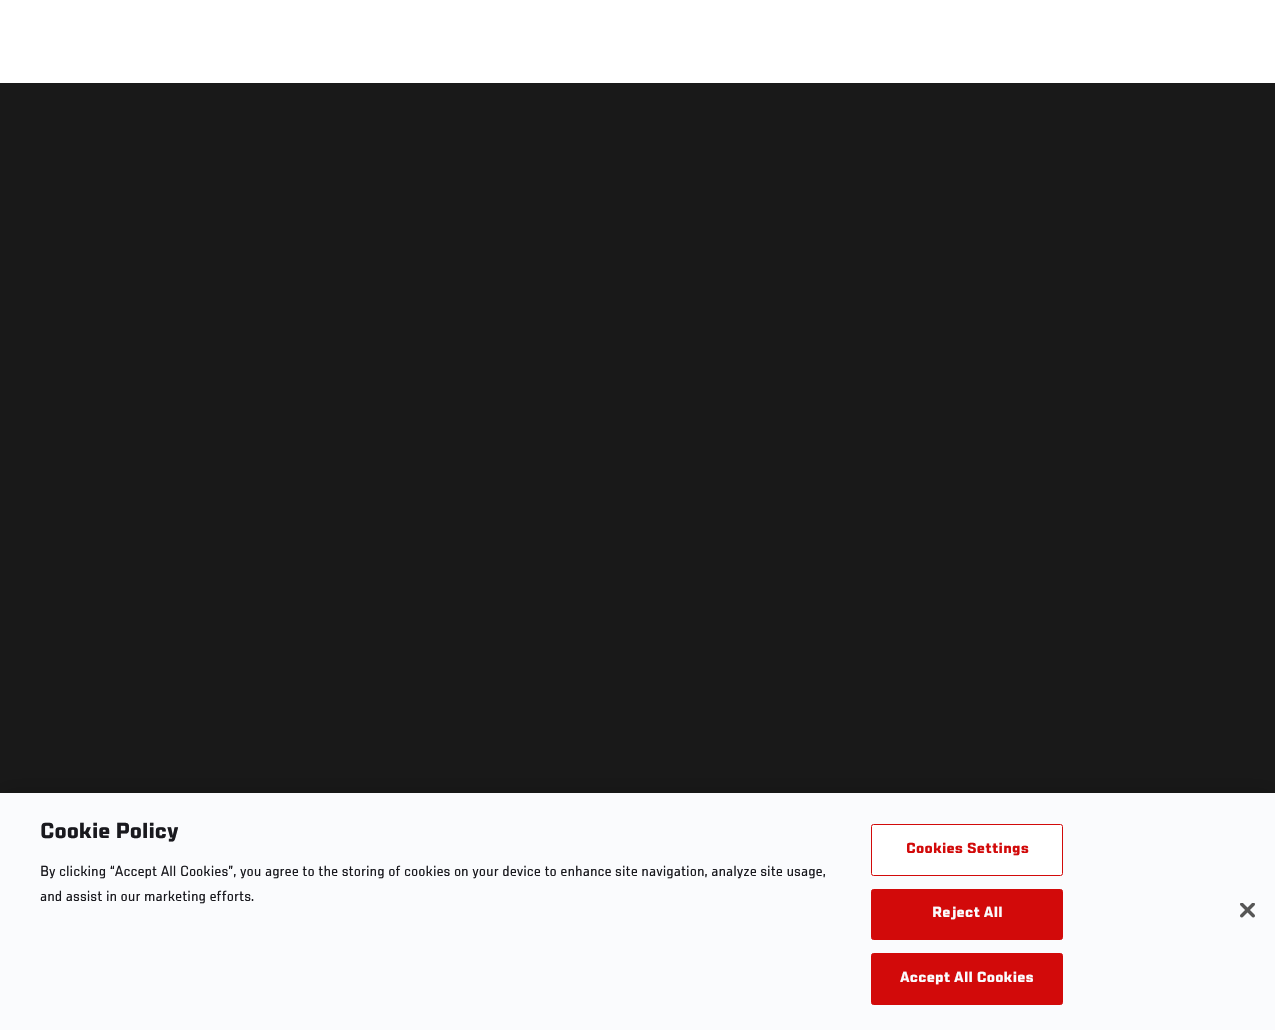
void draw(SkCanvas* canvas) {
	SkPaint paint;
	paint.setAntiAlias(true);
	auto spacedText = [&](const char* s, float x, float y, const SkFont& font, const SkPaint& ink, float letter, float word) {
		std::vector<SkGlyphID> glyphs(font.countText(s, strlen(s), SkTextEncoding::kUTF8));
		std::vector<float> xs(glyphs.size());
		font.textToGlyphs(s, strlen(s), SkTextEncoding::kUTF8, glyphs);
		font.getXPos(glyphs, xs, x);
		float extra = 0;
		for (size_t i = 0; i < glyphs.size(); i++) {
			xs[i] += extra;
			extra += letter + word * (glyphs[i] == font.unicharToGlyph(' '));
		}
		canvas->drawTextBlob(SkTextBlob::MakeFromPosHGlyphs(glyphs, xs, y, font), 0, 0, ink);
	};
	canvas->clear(0xffffffff);
	paint.setColor(0xff191919);
	canvas->drawRect(SkRect::MakeXYWH(0, 83, 1275, 710), paint);
	paint.setColor(0x33000000);
	paint.setMaskFilter(SkMaskFilter::MakeBlur(kNormal_SkBlurStyle, 11));
	canvas->drawRect(SkRect::MakeXYWH(0, 793, 1275, 237), paint);
	paint.setMaskFilter(nullptr);
	paint.setColor(0xfffafbfd);
	canvas->drawRect(SkRect::MakeXYWH(0, 793, 1275, 237), paint);
	SkFont f1(fontMgr->matchFamilyStyle("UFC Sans", SkFontStyle::Bold()), 24);
	f1.setSubpixel(true);
	paint.setColor(0xff19191e);
	canvas->drawString("Cookie Policy", 40, 838, f1, paint);
	SkFont f2(fontMgr->matchFamilyStyle("UFC Sans", SkFontStyle::Normal()), 16.25);
	f2.setSubpixel(true);
	canvas->drawString("By clicking “Accept All Cookies”, you agree to the storing of cookies on your device to enhance site navigation, analyze site usage,", 40, 876, f2, paint);
	canvas->drawString("and assist in our marketing efforts.", 40, 901, f2, paint);
	paint.setColor(0xffffffff);
	canvas->drawRoundRect(SkRect::MakeXYWH(871.5, 824.5, 191, 51), 2, 2, paint);
	paint.setStroke(true);
	paint.setStrokeWidth(1);
	paint.setColor(0xffd20a0a);
	canvas->drawRoundRect(SkRect::MakeXYWH(871.5, 824.5, 191, 51), 2, 2, paint);
	SkFont f3(fontMgr->matchFamilyStyle("UFC Sans", SkFontStyle::Bold()), 16.25);
	f3.setSubpixel(true);
	paint.setStroke(false);
	spacedText("Cookies Settings", 906, 853, f3, paint, 0.2, 0);
	canvas->drawRoundRect(SkRect::MakeXYWH(871.5, 889.5, 191, 50), 2, 2, paint);
	paint.setStroke(true);
	canvas->drawRoundRect(SkRect::MakeXYWH(871.5, 889.5, 191, 50), 2, 2, paint);
	paint.setStroke(false);
	paint.setColor(0xfffafbfd);
	spacedText("Reject All", 932, 917, f3, paint, 0.2, 0);
	paint.setColor(0xffd20a0a);
	canvas->drawRoundRect(SkRect::MakeXYWH(871.5, 953.5, 191, 51), 2, 2, paint);
	paint.setStroke(true);
	canvas->drawRoundRect(SkRect::MakeXYWH(871.5, 953.5, 191, 51), 2, 2, paint);
	paint.setStroke(false);
	paint.setColor(0xfffafbfd);
	spacedText("Accept All Cookies", 900, 982, f3, paint, 0.2, 0);
	canvas->drawImageRect(SkImages::DeferredFromEncodedData(SkData::MakeFromFileName("img1.png")), SkRect::MakeXYWH(1240, 903, 15, 15), SkSamplingOptions());
}
